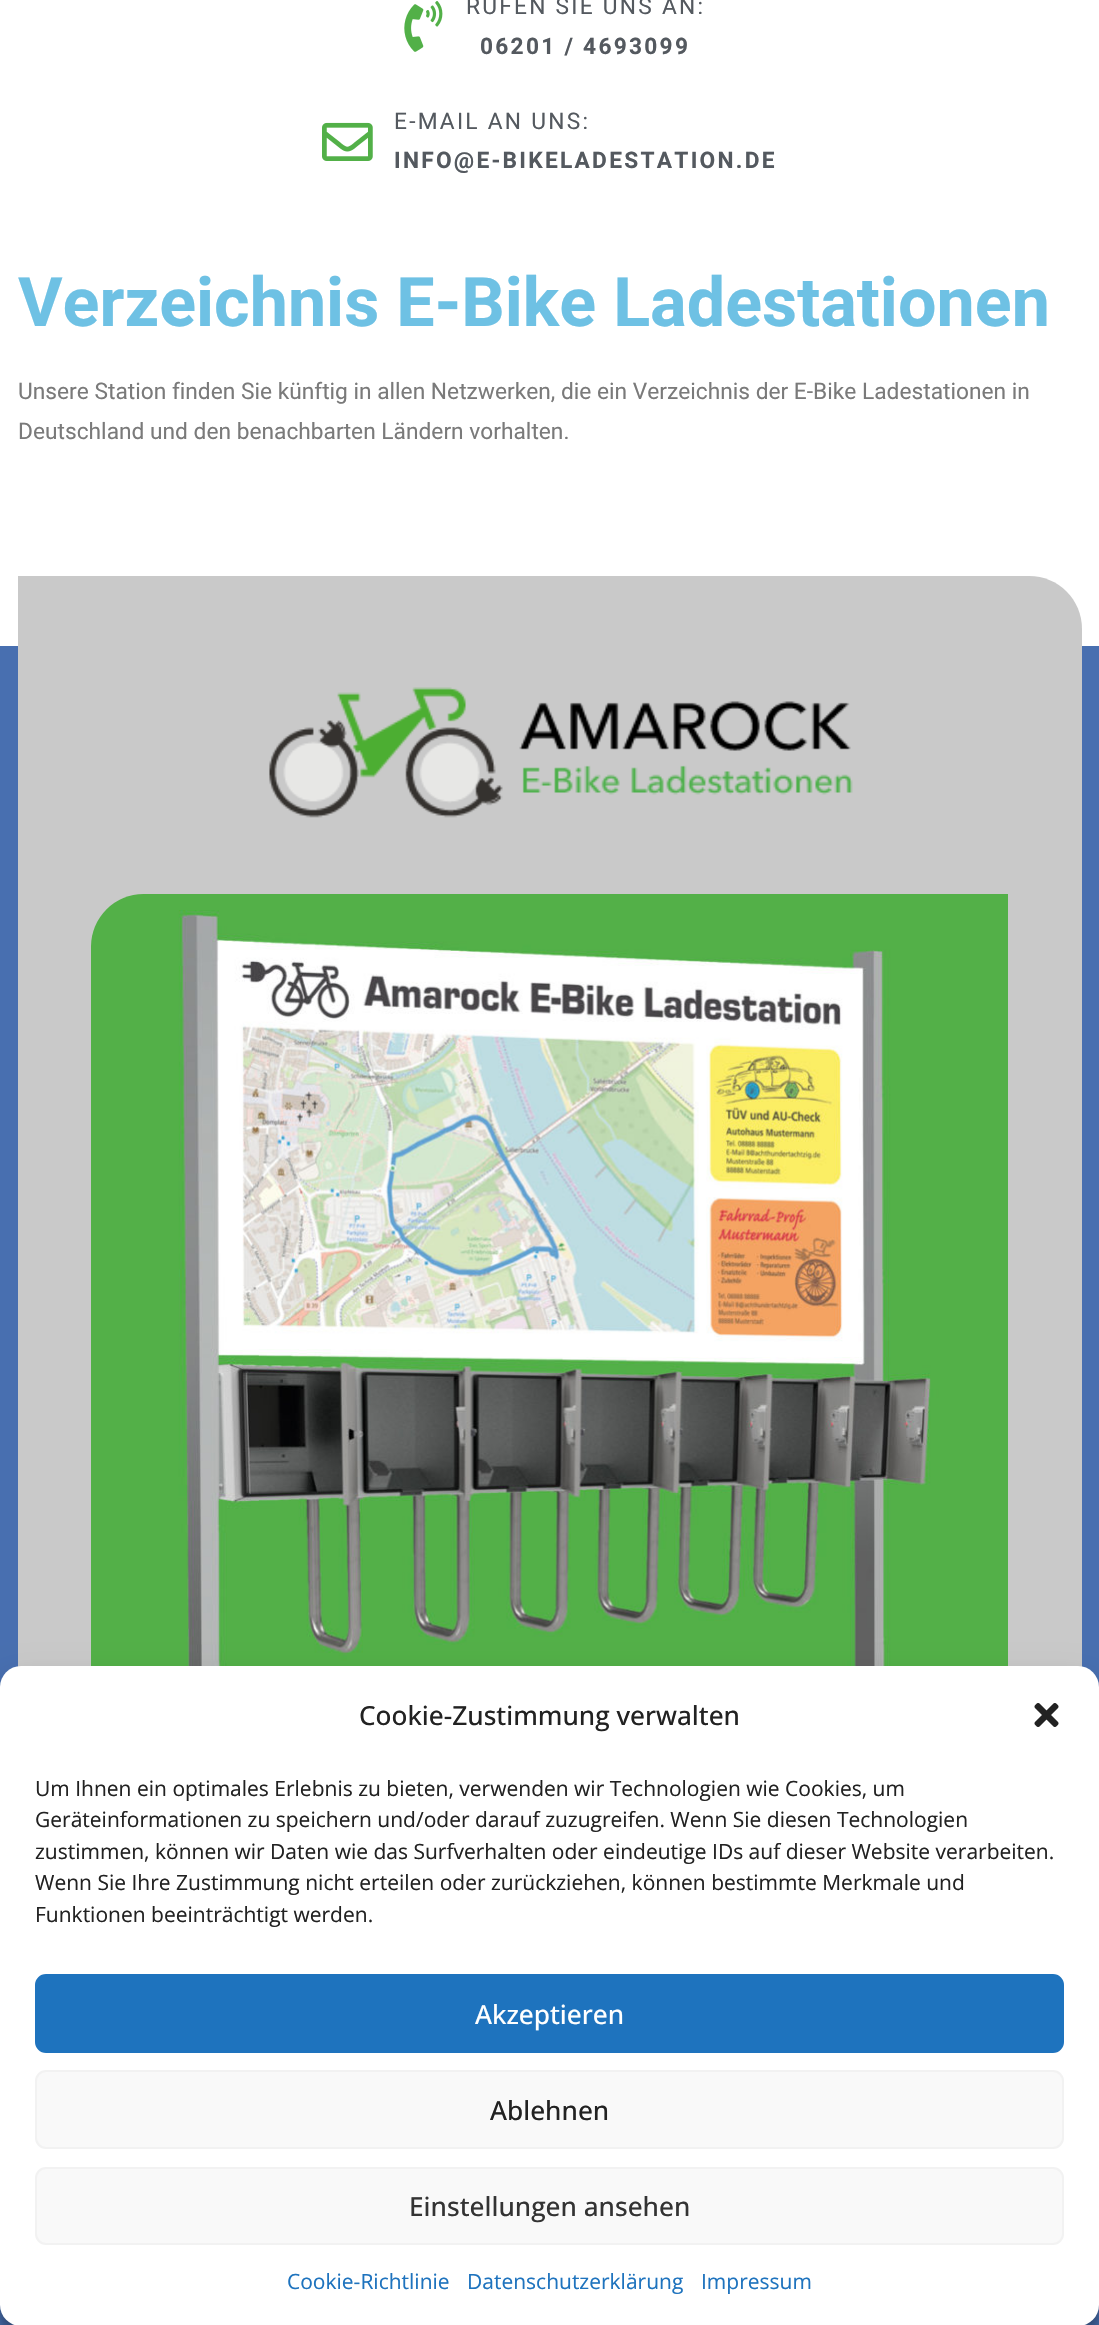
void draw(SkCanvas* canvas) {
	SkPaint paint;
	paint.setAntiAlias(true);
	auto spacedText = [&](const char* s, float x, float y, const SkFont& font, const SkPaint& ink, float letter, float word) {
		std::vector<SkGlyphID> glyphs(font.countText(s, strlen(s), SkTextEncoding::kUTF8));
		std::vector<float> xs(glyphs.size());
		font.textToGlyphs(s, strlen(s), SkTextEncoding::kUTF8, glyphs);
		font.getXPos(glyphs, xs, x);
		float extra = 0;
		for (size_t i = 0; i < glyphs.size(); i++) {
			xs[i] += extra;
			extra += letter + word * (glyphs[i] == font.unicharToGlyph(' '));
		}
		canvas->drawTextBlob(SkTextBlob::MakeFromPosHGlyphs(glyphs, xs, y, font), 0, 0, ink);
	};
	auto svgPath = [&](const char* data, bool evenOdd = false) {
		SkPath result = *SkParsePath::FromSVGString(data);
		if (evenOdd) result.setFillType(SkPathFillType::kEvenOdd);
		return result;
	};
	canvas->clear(0xffffffff);
	canvas->drawImageRect(SkImages::DeferredFromEncodedData(SkData::MakeFromFileName("img1.png")), SkRect::MakeXYWH(404, 1, 39, 51), SkSamplingOptions());
	SkFont f1(fontMgr->matchFamilyStyle("Roboto", SkFontStyle::Normal()), 22.75);
	f1.setSubpixel(true);
	paint.setColor(0xff54595f);
	spacedText("RUFEN SIE UNS AN:", 466, 14, f1, paint, 2.25, 0);
	SkFont f2(fontMgr->matchFamilyStyle("Roboto", SkFontStyle::Bold()), 22.75);
	f2.setSubpixel(true);
	spacedText("06201 / 4693099", 480, 54, f2, paint, 2.25, 0);
	canvas->drawImageRect(SkImages::DeferredFromEncodedData(SkData::MakeFromFileName("img2.png")), SkRect::MakeXYWH(322, 122, 51, 39), SkSamplingOptions());
	spacedText("E-MAIL AN UNS:", 394, 129, f1, paint, 2.25, 0);
	spacedText("INFO@E-BIKELADESTATION.DE", 394, 168, f2, paint, 2.25, 0);
	SkFont f3(fontMgr->matchFamilyStyle("Roboto", SkFontStyle::Bold()), 68.25);
	f3.setSubpixel(true);
	paint.setColor(0xff6ec1e4);
	canvas->drawString("Verzeichnis E-Bike Ladestationen", 18, 326, f3, paint);
	paint.setColor(0xff7a7a7a);
	canvas->drawString("Unsere Station finden Sie künftig in allen Netzwerken, die ein Verzeichnis der E-Bike Ladestationen in", 18, 399, f1, paint);
	canvas->drawString("Deutschland und den benachbarten Ländern vorhalten.", 18, 439, f1, paint);
	paint.setColor(0xff486fb0);
	canvas->drawRect(SkRect::MakeXYWH(0, 646, 1099, 1679), paint);
	paint.setColor(0xffc9c9c9);
	canvas->drawPath(svgPath("M18 576H1029C1058.5 576 1082 599.5 1082 629V1990H18Z"), paint);
	canvas->drawImageRect(SkImages::DeferredFromEncodedData(SkData::MakeFromFileName("img3.png")), SkRect::MakeXYWH(269, 687, 584, 131), SkSamplingOptions());
	canvas->drawImageRect(SkImages::DeferredFromEncodedData(SkData::MakeFromFileName("img4.png")), SkRect::MakeXYWH(91, 894, 917, 772), SkSamplingOptions());
	paint.setColor(0x3b000000);
	paint.setMaskFilter(SkMaskFilter::MakeBlur(kNormal_SkBlurStyle, 5));
	canvas->drawRoundRect(SkRect::MakeXYWH(0, 1677, 1099, 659), 21, 21, paint);
	paint.setMaskFilter(nullptr);
	paint.setColor(0x30000000);
	paint.setMaskFilter(SkMaskFilter::MakeBlur(kNormal_SkBlurStyle, 17.5));
	canvas->drawRoundRect(SkRect::MakeXYWH(0, 1684, 1099, 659), 21, 21, paint);
	paint.setMaskFilter(nullptr);
	paint.setColor(0xffffffff);
	canvas->drawRoundRect(SkRect::MakeXYWH(0, 1666, 1099, 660), 21, 21, paint);
	SkFont f4(fontMgr->matchFamilyStyle("Open Sans", SkFontStyle(500, SkFontStyle::kNormal_Width, SkFontStyle::kUpright_Slant)), 26.25);
	f4.setSubpixel(true);
	paint.setColor(0xff222222);
	canvas->drawString("Cookie-Zustimmung verwalten", 359, 1725, f4, paint);
	canvas->drawImageRect(SkImages::DeferredFromEncodedData(SkData::MakeFromFileName("img5.png")), SkRect::MakeXYWH(1034, 1703, 25, 24), SkSamplingOptions());
	SkFont f5(fontMgr->matchFamilyStyle("Open Sans", SkFontStyle::Normal()), 21);
	f5.setSubpixel(true);
	canvas->drawString("Um Ihnen ein optimales Erlebnis zu bieten, verwenden wir Technologien wie Cookies, um", 35, 1796, f5, paint);
	canvas->drawString("Geräteinformationen zu speichern und/oder darauf zuzugreifen. Wenn Sie diesen Technologien", 35, 1827, f5, paint);
	canvas->drawString("zustimmen, können wir Daten wie das Surfverhalten oder eindeutige IDs auf dieser Website verarbeiten.", 35, 1859, f5, paint);
	canvas->drawString("Wenn Sie Ihre Zustimmung nicht erteilen oder zurückziehen, können bestimmte Merkmale und", 35, 1890, f5, paint);
	canvas->drawString("Funktionen beeinträchtigt werden.", 35, 1922, f5, paint);
	paint.setColor(0xff1e73be);
	canvas->drawRoundRect(SkRect::MakeXYWH(36, 1975, 1027, 77), 10, 10, paint);
	paint.setStroke(true);
	paint.setStrokeWidth(2);
	canvas->drawRoundRect(SkRect::MakeXYWH(36, 1975, 1027, 77), 10, 10, paint);
	paint.setStroke(false);
	paint.setColor(0xffffffff);
	canvas->drawString("Akzeptieren", 475, 2024, f4, paint);
	paint.setColor(0xfff9f9f9);
	canvas->drawRoundRect(SkRect::MakeXYWH(36, 2071, 1027, 77), 10, 10, paint);
	paint.setStroke(true);
	paint.setColor(0xfff2f2f2);
	canvas->drawRoundRect(SkRect::MakeXYWH(36, 2071, 1027, 77), 10, 10, paint);
	paint.setStroke(false);
	paint.setColor(0xff222222);
	canvas->drawString("Ablehnen", 490, 2120, f4, paint);
	paint.setColor(0xfff9f9f9);
	canvas->drawRoundRect(SkRect::MakeXYWH(36, 2168, 1027, 76), 10, 10, paint);
	paint.setStroke(true);
	paint.setColor(0xfff2f2f2);
	canvas->drawRoundRect(SkRect::MakeXYWH(36, 2168, 1027, 76), 10, 10, paint);
	paint.setStroke(false);
	paint.setColor(0xff333333);
	canvas->drawString("Einstellungen ansehen", 409, 2216, f4, paint);
	paint.setColor(0xff1e73be);
	canvas->drawString("Cookie-Richtlinie", 287, 2289, f5, paint);
	canvas->drawString("Datenschutzerklärung", 467, 2289, f5, paint);
	canvas->drawString("Impressum", 701, 2289, f5, paint);
}
